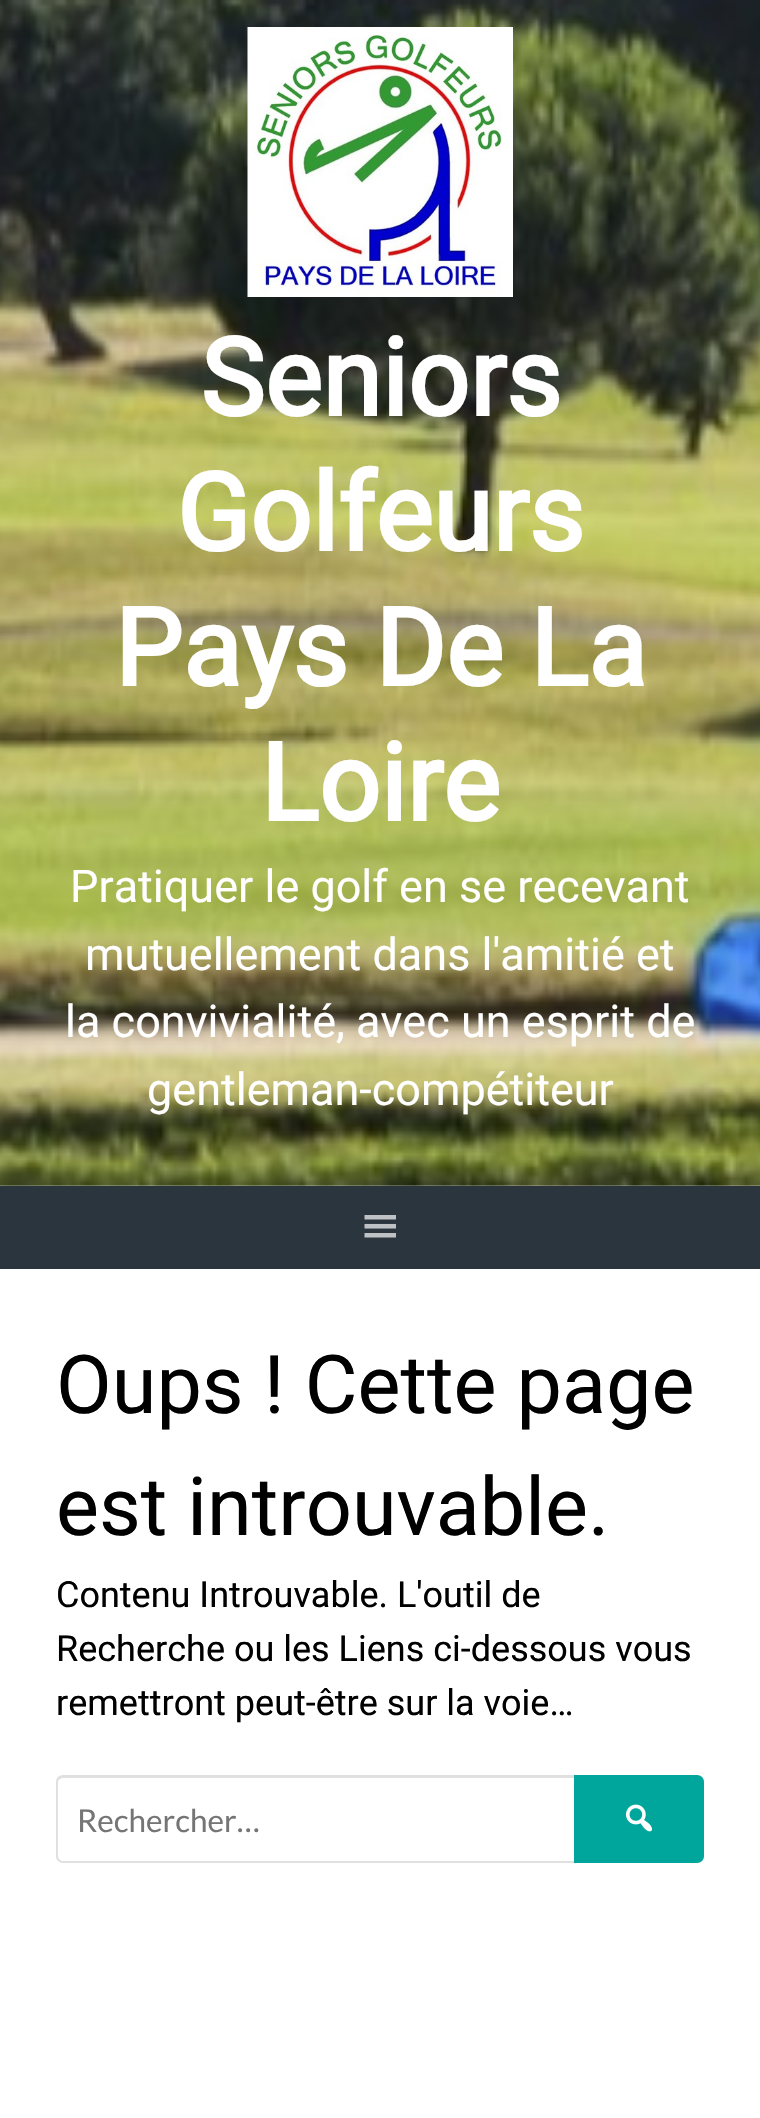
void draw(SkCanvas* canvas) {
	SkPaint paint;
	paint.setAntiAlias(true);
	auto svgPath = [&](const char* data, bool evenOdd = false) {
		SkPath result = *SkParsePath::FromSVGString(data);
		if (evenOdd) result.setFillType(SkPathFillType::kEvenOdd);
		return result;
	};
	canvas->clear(0xffffffff);
	canvas->drawImageRect(SkImages::DeferredFromEncodedData(SkData::MakeFromFileName("img1.png")), SkRect::MakeXYWH(0, 0, 760, 1186), SkSamplingOptions());
	canvas->save();
	canvas->clipPath(svgPath("M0 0H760V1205H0ZM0 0H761V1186H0Z", true), true);
	paint.setColor(0x33000000);
	paint.setMaskFilter(SkMaskFilter::MakeBlur(kNormal_SkBlurStyle, 3.5));
	canvas->drawRect(SkRect::MakeXYWH(0, 7, 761, 1186), paint);
	paint.setMaskFilter(nullptr);
	canvas->restore();
	canvas->drawImageRect(SkImages::DeferredFromEncodedData(SkData::MakeFromFileName("img2.png")), SkRect::MakeXYWH(247, 27, 266, 270), SkSamplingOptions());
	SkFont f1(fontMgr->matchFamilyStyle("Roboto", SkFontStyle::Bold()), 108);
	f1.setSubpixel(true);
	paint.setColor(0xffffffff);
	canvas->drawString("Seniors", 200, 416, f1, paint);
	canvas->drawString("Golfeurs", 176, 551, f1, paint);
	canvas->drawString("Pays De La", 114, 686, f1, paint);
	canvas->drawString("Loire", 260, 821, f1, paint);
	SkFont f2(fontMgr->matchFamilyStyle("Roboto", SkFontStyle::Normal()), 45);
	f2.setSubpixel(true);
	canvas->drawString("Pratiquer le golf en se recevant", 70, 902, f2, paint);
	canvas->drawString("mutuellement dans l'amitié et", 85, 970, f2, paint);
	canvas->drawString("la convivialité, avec un esprit de", 65, 1037, f2, paint);
	canvas->drawString("gentleman-compétiteur", 147, 1105, f2, paint);
	paint.setColor(0xff2b353e);
	canvas->drawRect(SkRect::MakeXYWH(0, 1186, 760, 83), paint);
	canvas->drawImageRect(SkImages::DeferredFromEncodedData(SkData::MakeFromFileName("img3.png")), SkRect::MakeXYWH(364, 1215, 32, 23), SkSamplingOptions());
	SkFont f3(fontMgr->matchFamilyStyle("Roboto", SkFontStyle::Normal()), 81);
	f3.setSubpixel(true);
	paint.setColor(0xff000000);
	canvas->drawString("Oups ! Cette page", 56, 1413, f3, paint);
	canvas->drawString("est introuvable.", 56, 1535, f3, paint);
	SkFont f4(fontMgr->matchFamilyStyle("Roboto", SkFontStyle::Normal()), 36);
	f4.setSubpixel(true);
	canvas->drawString("Contenu Introuvable. L'outil de", 56, 1607, f4, paint);
	canvas->drawString("Recherche ou les Liens ci-dessous vous", 56, 1661, f4, paint);
	canvas->drawString("remettront peut-être sur la voie…", 56, 1715, f4, paint);
	paint.setColor(0xffe0e0e0);
	canvas->drawPath(svgPath("M63 1775H574V1863H63C59 1863 56 1860 56 1856V1782C56 1778 59 1775 63 1775ZM63 1778H574V1861H63C61 1861 58 1859 58 1856V1782C58 1780 61 1778 63 1778Z", true), paint);
	SkFont f5(fontMgr->matchFamilyStyle("Lato", SkFontStyle::Normal()), 31.5);
	f5.setSubpixel(true);
	paint.setColor(0xff757575);
	canvas->drawString("Rechercher…", 77, 1832, f5, paint);
	paint.setColor(0xff00a69c);
	canvas->drawPath(svgPath("M574 1775H697C701 1775 704 1778 704 1782V1856C704 1860 701 1863 697 1863H574Z"), paint);
	canvas->drawImageRect(SkImages::DeferredFromEncodedData(SkData::MakeFromFileName("img4.png")), SkRect::MakeXYWH(626, 1804, 26, 28), SkSamplingOptions());
}
